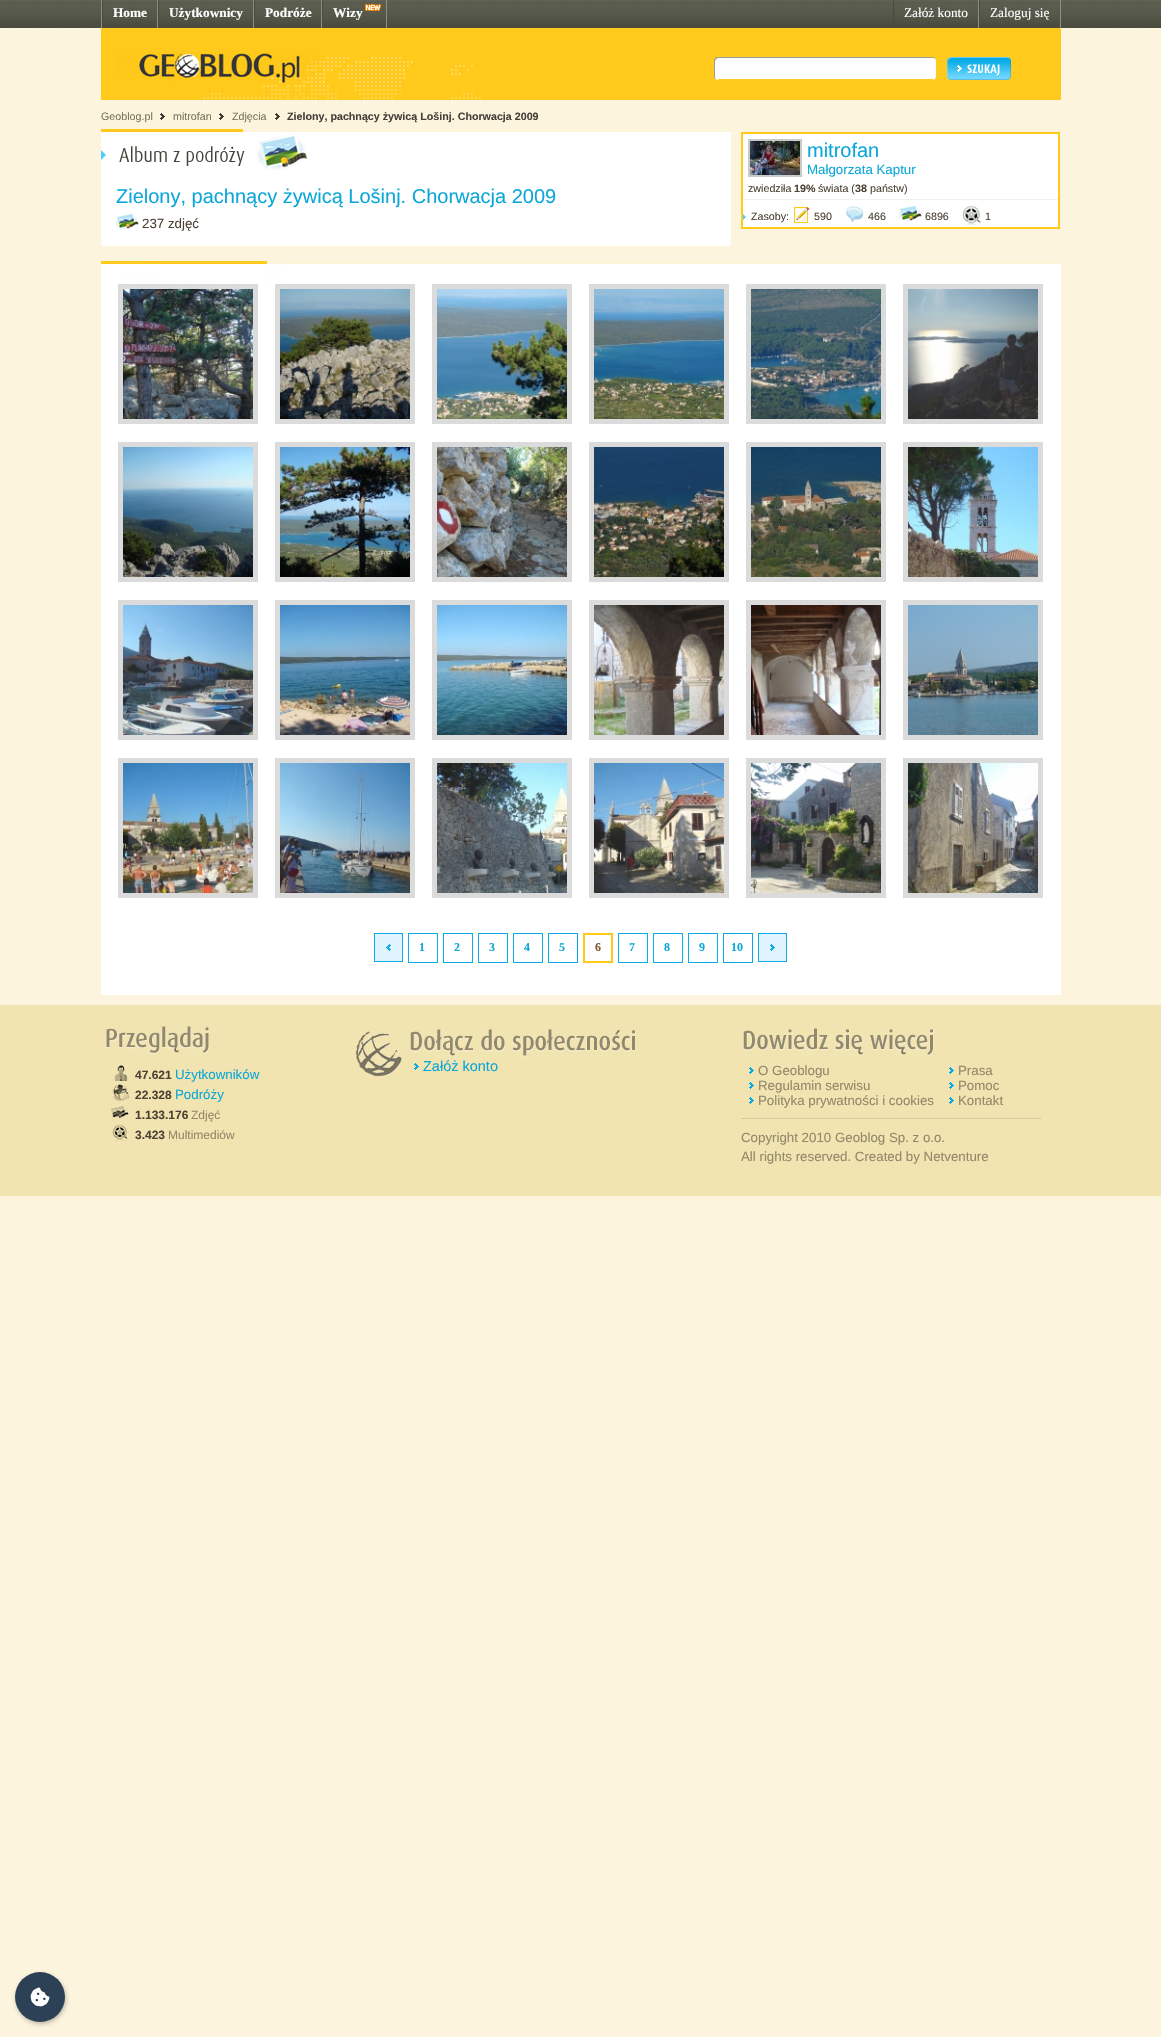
void draw(SkCanvas* canvas) {
	SkPaint paint;
	paint.setAntiAlias(true);
	canvas->clear(0xfffcf4dd);
	canvas->drawImageRect(SkImages::DeferredFromEncodedData(SkData::MakeFromFileName("img1.png")), SkRect::MakeXYWH(0, 0, 1161, 28), SkSamplingOptions());
	paint.setColor(0xff8c8d83);
	canvas->drawRect(SkRect::MakeXYWH(101, 0, 1, 28), paint);
	canvas->drawRect(SkRect::MakeXYWH(157, 0, 1, 28), paint);
	paint.setColor(0xff494a41);
	canvas->drawRect(SkRect::MakeXYWH(102, 0, 1, 28), paint);
	SkFont f1(fontMgr->matchFamilyStyle("Liberation Serif", SkFontStyle::Bold()), 13.3);
	f1.setSubpixel(true);
	paint.setColor(0xffffffff);
	canvas->drawString("Home", 113, 17, f1, paint);
	paint.setColor(0xff8c8d83);
	canvas->drawRect(SkRect::MakeXYWH(253, 0, 1, 28), paint);
	paint.setColor(0xff494a41);
	canvas->drawRect(SkRect::MakeXYWH(158, 0, 1, 28), paint);
	paint.setColor(0xffffffff);
	canvas->drawString("Użytkownicy", 169, 17, f1, paint);
	paint.setColor(0xff8c8d83);
	canvas->drawRect(SkRect::MakeXYWH(321, 0, 1, 28), paint);
	paint.setColor(0xff494a41);
	canvas->drawRect(SkRect::MakeXYWH(254, 0, 1, 28), paint);
	paint.setColor(0xffffffff);
	canvas->drawString("Podróże", 265, 17, f1, paint);
	paint.setColor(0xff8c8d83);
	canvas->drawRect(SkRect::MakeXYWH(386, 0, 1, 28), paint);
	paint.setColor(0xff494a41);
	canvas->drawRect(SkRect::MakeXYWH(322, 0, 1, 28), paint);
	paint.setColor(0xffffffff);
	canvas->drawString("Wizy", 333, 17, f1, paint);
	canvas->drawImageRect(SkImages::DeferredFromEncodedData(SkData::MakeFromFileName("img2.png")), SkRect::MakeXYWH(365, 4, 16, 7), SkSamplingOptions());
	paint.setColor(0xff8c8d83);
	canvas->drawRect(SkRect::MakeXYWH(978, 0, 1, 28), paint);
	paint.setColor(0xff494a41);
	canvas->drawRect(SkRect::MakeXYWH(893, 0, 1, 28), paint);
	SkFont f2(fontMgr->matchFamilyStyle("Liberation Serif", SkFontStyle::Normal()), 13.3);
	f2.setSubpixel(true);
	paint.setColor(0xffffffff);
	canvas->drawString("Załóż konto", 904, 17, f2, paint);
	paint.setColor(0xff8c8d83);
	canvas->drawRect(SkRect::MakeXYWH(1060, 0, 1, 28), paint);
	paint.setColor(0xff494a41);
	canvas->drawRect(SkRect::MakeXYWH(979, 0, 1, 28), paint);
	paint.setColor(0xffffffff);
	canvas->drawString("Zaloguj się", 990, 17, f2, paint);
	paint.setColor(0xffffca1c);
	canvas->drawRect(SkRect::MakeXYWH(101, 28, 960, 72), paint);
	canvas->drawImageRect(SkImages::DeferredFromEncodedData(SkData::MakeFromFileName("img3.png")), SkRect::MakeXYWH(101, 52, 380, 48), SkSamplingOptions());
	canvas->drawImageRect(SkImages::DeferredFromEncodedData(SkData::MakeFromFileName("img4.png")), SkRect::MakeXYWH(714, 56, 4, 25), SkSamplingOptions());
	paint.setColor(0xffffffff);
	canvas->drawRect(SkRect::MakeXYWH(718, 78, 215, 1), paint);
	canvas->drawImageRect(SkImages::DeferredFromEncodedData(SkData::MakeFromFileName("img5.png")), SkRect::MakeXYWH(718, 56, 215, 22), SkSamplingOptions());
	canvas->drawImageRect(SkImages::DeferredFromEncodedData(SkData::MakeFromFileName("img6.png")), SkRect::MakeXYWH(933, 56, 4, 25), SkSamplingOptions());
	canvas->drawImageRect(SkImages::DeferredFromEncodedData(SkData::MakeFromFileName("img7.png")), SkRect::MakeXYWH(947, 57, 64, 23), SkSamplingOptions());
	SkFont f3(fontMgr->matchFamilyStyle("Liberation Sans", SkFontStyle::Normal()), 10.7);
	f3.setSubpixel(true);
	paint.setColor(0xff76765c);
	canvas->drawString("Geoblog.pl", 101, 120, f3, paint);
	canvas->drawImageRect(SkImages::DeferredFromEncodedData(SkData::MakeFromFileName("img8.png")), SkRect::MakeXYWH(160, 113, 5, 7), SkSamplingOptions());
	canvas->drawString("mitrofan", 173, 120, f3, paint);
	canvas->drawImageRect(SkImages::DeferredFromEncodedData(SkData::MakeFromFileName("img8.png")), SkRect::MakeXYWH(219, 113, 5, 7), SkSamplingOptions());
	canvas->drawString("Zdjęcia", 232, 120, f3, paint);
	canvas->drawImageRect(SkImages::DeferredFromEncodedData(SkData::MakeFromFileName("img8.png")), SkRect::MakeXYWH(275, 113, 5, 7), SkSamplingOptions());
	SkFont f4(fontMgr->matchFamilyStyle("Liberation Sans", SkFontStyle::Bold()), 10.7);
	f4.setSubpixel(true);
	paint.setColor(0xff443f39);
	canvas->drawString("Zielony, pachnący żywicą Lošinj. Chorwacja 2009", 287, 120, f4, paint);
	paint.setColor(0xffffffff);
	canvas->drawRect(SkRect::MakeXYWH(101, 132, 630, 114), paint);
	paint.setColor(0xfffbf6d9);
	canvas->drawRect(SkRect::MakeXYWH(307, 129, 424, 3), paint);
	canvas->drawImageRect(SkImages::DeferredFromEncodedData(SkData::MakeFromFileName("img9.png")), SkRect::MakeXYWH(101, 129, 206, 41), SkSamplingOptions());
	SkFont f5(fontMgr->matchFamilyStyle("Liberation Sans", SkFontStyle::Normal()), 20);
	f5.setSubpixel(true);
	paint.setColor(0xff0ba7d8);
	canvas->drawString("Zielony, pachnący żywicą Lošinj. Chorwacja 2009", 116, 203, f5, paint);
	canvas->drawImageRect(SkImages::DeferredFromEncodedData(SkData::MakeFromFileName("img10.png")), SkRect::MakeXYWH(116, 213, 23, 17), SkSamplingOptions());
	SkFont f6(fontMgr->matchFamilyStyle("Liberation Sans", SkFontStyle::Normal()), 13.3);
	f6.setSubpixel(true);
	paint.setColor(0xff4b4233);
	canvas->drawString("237 zdjęć", 142, 228, f6, paint);
	paint.setColor(0xffffffff);
	canvas->drawRect(SkRect::MakeXYWH(742, 133, 317, 95), paint);
	paint.setStroke(true);
	paint.setStrokeWidth(2);
	paint.setColor(0xffffca1c);
	canvas->drawRect(SkRect::MakeXYWH(742, 133, 317, 95), paint);
	paint.setStroke(false);
	paint.setColor(0xfff0f0f0);
	canvas->drawRect(SkRect::MakeXYWH(743, 199, 315, 1), paint);
	paint.setStroke(true);
	paint.setColor(0xffcacaca);
	canvas->drawRect(SkRect::MakeXYWH(749, 140, 52, 36), paint);
	canvas->drawImageRect(SkImages::DeferredFromEncodedData(SkData::MakeFromFileName("img11.png")), SkRect::MakeXYWH(750, 141, 50, 34), SkSamplingOptions());
	paint.setStroke(false);
	paint.setColor(0xff0ba7d8);
	canvas->drawString("mitrofan", 807, 157, f5, paint);
	canvas->drawString("Małgorzata Kaptur", 807, 174, f6, paint);
	paint.setColor(0xff4b4233);
	canvas->drawString("zwiedziła", 748, 192, f3, paint);
	canvas->drawString("19%", 794, 192, f4, paint);
	canvas->drawString("świata (", 818, 192, f3, paint);
	canvas->drawString("38", 855, 192, f4, paint);
	canvas->drawString("państw)", 870, 192, f3, paint);
	canvas->drawImageRect(SkImages::DeferredFromEncodedData(SkData::MakeFromFileName("img12.png")), SkRect::MakeXYWH(743, 214, 3, 6), SkSamplingOptions());
	canvas->drawString("Zasoby:", 751, 220, f3, paint);
	canvas->drawImageRect(SkImages::DeferredFromEncodedData(SkData::MakeFromFileName("img13.png")), SkRect::MakeXYWH(794, 207, 16, 16), SkSamplingOptions());
	canvas->drawString("590", 814, 220, f3, paint);
	canvas->drawImageRect(SkImages::DeferredFromEncodedData(SkData::MakeFromFileName("img14.png")), SkRect::MakeXYWH(846, 206, 17, 16), SkSamplingOptions());
	canvas->drawString("466", 868, 220, f3, paint);
	canvas->drawImageRect(SkImages::DeferredFromEncodedData(SkData::MakeFromFileName("img10.png")), SkRect::MakeXYWH(899, 205, 23, 17), SkSamplingOptions());
	canvas->drawString("6896", 925, 220, f3, paint);
	canvas->drawImageRect(SkImages::DeferredFromEncodedData(SkData::MakeFromFileName("img15.png")), SkRect::MakeXYWH(962, 205, 19, 20), SkSamplingOptions());
	canvas->drawString("1", 985, 220, f3, paint);
	paint.setColor(0xffffffff);
	canvas->drawRect(SkRect::MakeXYWH(101, 264, 960, 731), paint);
	paint.setColor(0xfffbf6d9);
	canvas->drawRect(SkRect::MakeXYWH(281, 261, 780, 3), paint);
	canvas->drawImageRect(SkImages::DeferredFromEncodedData(SkData::MakeFromFileName("img16.png")), SkRect::MakeXYWH(101, 261, 180, 21), SkSamplingOptions());
	paint.setStroke(true);
	paint.setStrokeWidth(5);
	paint.setColor(0xffdbdbdb);
	canvas->drawRect(SkRect::MakeXYWH(120.5, 286.5, 135, 135), paint);
	canvas->drawImageRect(SkImages::DeferredFromEncodedData(SkData::MakeFromFileName("img17.png")), SkRect::MakeXYWH(123, 289, 130, 130), SkSamplingOptions());
	canvas->drawRect(SkRect::MakeXYWH(277.5, 286.5, 135, 135), paint);
	canvas->drawImageRect(SkImages::DeferredFromEncodedData(SkData::MakeFromFileName("img18.png")), SkRect::MakeXYWH(280, 289, 130, 130), SkSamplingOptions());
	canvas->drawRect(SkRect::MakeXYWH(434.5, 286.5, 135, 135), paint);
	canvas->drawImageRect(SkImages::DeferredFromEncodedData(SkData::MakeFromFileName("img19.png")), SkRect::MakeXYWH(437, 289, 130, 130), SkSamplingOptions());
	canvas->drawRect(SkRect::MakeXYWH(591.5, 286.5, 135, 135), paint);
	canvas->drawImageRect(SkImages::DeferredFromEncodedData(SkData::MakeFromFileName("img20.png")), SkRect::MakeXYWH(594, 289, 130, 130), SkSamplingOptions());
	canvas->drawRect(SkRect::MakeXYWH(748.5, 286.5, 135, 135), paint);
	canvas->drawImageRect(SkImages::DeferredFromEncodedData(SkData::MakeFromFileName("img21.png")), SkRect::MakeXYWH(751, 289, 130, 130), SkSamplingOptions());
	canvas->drawRect(SkRect::MakeXYWH(905.5, 286.5, 135, 135), paint);
	canvas->drawImageRect(SkImages::DeferredFromEncodedData(SkData::MakeFromFileName("img22.png")), SkRect::MakeXYWH(908, 289, 130, 130), SkSamplingOptions());
	canvas->drawRect(SkRect::MakeXYWH(120.5, 444.5, 135, 135), paint);
	canvas->drawImageRect(SkImages::DeferredFromEncodedData(SkData::MakeFromFileName("img23.png")), SkRect::MakeXYWH(123, 447, 130, 130), SkSamplingOptions());
	canvas->drawRect(SkRect::MakeXYWH(277.5, 444.5, 135, 135), paint);
	canvas->drawImageRect(SkImages::DeferredFromEncodedData(SkData::MakeFromFileName("img24.png")), SkRect::MakeXYWH(280, 447, 130, 130), SkSamplingOptions());
	canvas->drawRect(SkRect::MakeXYWH(434.5, 444.5, 135, 135), paint);
	canvas->drawImageRect(SkImages::DeferredFromEncodedData(SkData::MakeFromFileName("img25.png")), SkRect::MakeXYWH(437, 447, 130, 130), SkSamplingOptions());
	canvas->drawRect(SkRect::MakeXYWH(591.5, 444.5, 135, 135), paint);
	canvas->drawImageRect(SkImages::DeferredFromEncodedData(SkData::MakeFromFileName("img26.png")), SkRect::MakeXYWH(594, 447, 130, 130), SkSamplingOptions());
	canvas->drawRect(SkRect::MakeXYWH(748.5, 444.5, 135, 135), paint);
	canvas->drawImageRect(SkImages::DeferredFromEncodedData(SkData::MakeFromFileName("img27.png")), SkRect::MakeXYWH(751, 447, 130, 130), SkSamplingOptions());
	canvas->drawRect(SkRect::MakeXYWH(905.5, 444.5, 135, 135), paint);
	canvas->drawImageRect(SkImages::DeferredFromEncodedData(SkData::MakeFromFileName("img28.png")), SkRect::MakeXYWH(908, 447, 130, 130), SkSamplingOptions());
	canvas->drawRect(SkRect::MakeXYWH(120.5, 602.5, 135, 135), paint);
	canvas->drawImageRect(SkImages::DeferredFromEncodedData(SkData::MakeFromFileName("img29.png")), SkRect::MakeXYWH(123, 605, 130, 130), SkSamplingOptions());
	canvas->drawRect(SkRect::MakeXYWH(277.5, 602.5, 135, 135), paint);
	canvas->drawImageRect(SkImages::DeferredFromEncodedData(SkData::MakeFromFileName("img30.png")), SkRect::MakeXYWH(280, 605, 130, 130), SkSamplingOptions());
	canvas->drawRect(SkRect::MakeXYWH(434.5, 602.5, 135, 135), paint);
	canvas->drawImageRect(SkImages::DeferredFromEncodedData(SkData::MakeFromFileName("img31.png")), SkRect::MakeXYWH(437, 605, 130, 130), SkSamplingOptions());
	canvas->drawRect(SkRect::MakeXYWH(591.5, 602.5, 135, 135), paint);
	canvas->drawImageRect(SkImages::DeferredFromEncodedData(SkData::MakeFromFileName("img32.png")), SkRect::MakeXYWH(594, 605, 130, 130), SkSamplingOptions());
	canvas->drawRect(SkRect::MakeXYWH(748.5, 602.5, 135, 135), paint);
	canvas->drawImageRect(SkImages::DeferredFromEncodedData(SkData::MakeFromFileName("img33.png")), SkRect::MakeXYWH(751, 605, 130, 130), SkSamplingOptions());
	canvas->drawRect(SkRect::MakeXYWH(905.5, 602.5, 135, 135), paint);
	canvas->drawImageRect(SkImages::DeferredFromEncodedData(SkData::MakeFromFileName("img34.png")), SkRect::MakeXYWH(908, 605, 130, 130), SkSamplingOptions());
	canvas->drawRect(SkRect::MakeXYWH(120.5, 760.5, 135, 135), paint);
	canvas->drawImageRect(SkImages::DeferredFromEncodedData(SkData::MakeFromFileName("img35.png")), SkRect::MakeXYWH(123, 763, 130, 130), SkSamplingOptions());
	canvas->drawRect(SkRect::MakeXYWH(277.5, 760.5, 135, 135), paint);
	canvas->drawImageRect(SkImages::DeferredFromEncodedData(SkData::MakeFromFileName("img36.png")), SkRect::MakeXYWH(280, 763, 130, 130), SkSamplingOptions());
	canvas->drawRect(SkRect::MakeXYWH(434.5, 760.5, 135, 135), paint);
	canvas->drawImageRect(SkImages::DeferredFromEncodedData(SkData::MakeFromFileName("img37.png")), SkRect::MakeXYWH(437, 763, 130, 130), SkSamplingOptions());
	canvas->drawRect(SkRect::MakeXYWH(591.5, 760.5, 135, 135), paint);
	canvas->drawImageRect(SkImages::DeferredFromEncodedData(SkData::MakeFromFileName("img38.png")), SkRect::MakeXYWH(594, 763, 130, 130), SkSamplingOptions());
	canvas->drawRect(SkRect::MakeXYWH(748.5, 760.5, 135, 135), paint);
	canvas->drawImageRect(SkImages::DeferredFromEncodedData(SkData::MakeFromFileName("img39.png")), SkRect::MakeXYWH(751, 763, 130, 130), SkSamplingOptions());
	canvas->drawRect(SkRect::MakeXYWH(905.5, 760.5, 135, 135), paint);
	canvas->drawImageRect(SkImages::DeferredFromEncodedData(SkData::MakeFromFileName("img40.png")), SkRect::MakeXYWH(908, 763, 130, 130), SkSamplingOptions());
	canvas->drawImageRect(SkImages::DeferredFromEncodedData(SkData::MakeFromFileName("img41.png")), SkRect::MakeXYWH(374, 933, 29, 29), SkSamplingOptions());
	paint.setStrokeWidth(1);
	paint.setColor(0xff0babe6);
	canvas->drawRect(SkRect::MakeXYWH(408.5, 933.5, 29, 29), paint);
	SkFont f7(fontMgr->matchFamilyStyle("Liberation Serif", SkFontStyle::Bold()), 12);
	f7.setSubpixel(true);
	paint.setStroke(false);
	paint.setColor(0xff0ba7d8);
	canvas->drawString("1", 419, 951, f7, paint);
	paint.setStroke(true);
	paint.setColor(0xff0babe6);
	canvas->drawRect(SkRect::MakeXYWH(443.5, 933.5, 29, 29), paint);
	paint.setStroke(false);
	paint.setColor(0xff0ba7d8);
	canvas->drawString("2", 454, 951, f7, paint);
	paint.setStroke(true);
	paint.setColor(0xff0babe6);
	canvas->drawRect(SkRect::MakeXYWH(478.5, 933.5, 29, 29), paint);
	paint.setStroke(false);
	paint.setColor(0xff0ba7d8);
	canvas->drawString("3", 489, 951, f7, paint);
	paint.setStroke(true);
	paint.setColor(0xff0babe6);
	canvas->drawRect(SkRect::MakeXYWH(513.5, 933.5, 29, 29), paint);
	paint.setStroke(false);
	paint.setColor(0xff0ba7d8);
	canvas->drawString("4", 524, 951, f7, paint);
	paint.setStroke(true);
	paint.setColor(0xff0babe6);
	canvas->drawRect(SkRect::MakeXYWH(548.5, 933.5, 29, 29), paint);
	paint.setStroke(false);
	paint.setColor(0xff0ba7d8);
	canvas->drawString("5", 559, 951, f7, paint);
	paint.setStroke(true);
	paint.setStrokeWidth(2);
	paint.setColor(0xffffca1c);
	canvas->drawRect(SkRect::MakeXYWH(584, 934, 28, 28), paint);
	paint.setStroke(false);
	paint.setColor(0xff815531);
	canvas->drawString("6", 595, 951, f7, paint);
	paint.setStroke(true);
	paint.setStrokeWidth(1);
	paint.setColor(0xff0babe6);
	canvas->drawRect(SkRect::MakeXYWH(618.5, 933.5, 29, 29), paint);
	paint.setStroke(false);
	paint.setColor(0xff0ba7d8);
	canvas->drawString("7", 629, 951, f7, paint);
	paint.setStroke(true);
	paint.setColor(0xff0babe6);
	canvas->drawRect(SkRect::MakeXYWH(653.5, 933.5, 29, 29), paint);
	paint.setStroke(false);
	paint.setColor(0xff0ba7d8);
	canvas->drawString("8", 664, 951, f7, paint);
	paint.setStroke(true);
	paint.setColor(0xff0babe6);
	canvas->drawRect(SkRect::MakeXYWH(688.5, 933.5, 29, 29), paint);
	paint.setStroke(false);
	paint.setColor(0xff0ba7d8);
	canvas->drawString("9", 699, 951, f7, paint);
	paint.setStroke(true);
	paint.setColor(0xff0babe6);
	canvas->drawRect(SkRect::MakeXYWH(723.5, 933.5, 29, 29), paint);
	paint.setStroke(false);
	paint.setColor(0xff0ba7d8);
	canvas->drawString("10", 731, 951, f7, paint);
	canvas->drawImageRect(SkImages::DeferredFromEncodedData(SkData::MakeFromFileName("img42.png")), SkRect::MakeXYWH(758, 933, 29, 29), SkSamplingOptions());
	paint.setColor(0xfff2e4b1);
	canvas->drawRect(SkRect::MakeXYWH(0, 1005, 1161, 191), paint);
	canvas->drawImageRect(SkImages::DeferredFromEncodedData(SkData::MakeFromFileName("img43.png")), SkRect::MakeXYWH(353, 1027, 52, 52), SkSamplingOptions());
	canvas->drawImageRect(SkImages::DeferredFromEncodedData(SkData::MakeFromFileName("img44.png")), SkRect::MakeXYWH(406, 1027, 234, 31), SkSamplingOptions());
	canvas->drawImageRect(SkImages::DeferredFromEncodedData(SkData::MakeFromFileName("img45.png")), SkRect::MakeXYWH(411, 1061, 9, 12), SkSamplingOptions());
	SkFont f8(fontMgr->matchFamilyStyle("Liberation Sans", SkFontStyle::Normal()), 14.5);
	f8.setSubpixel(true);
	paint.setColor(0xff0ba7d8);
	canvas->drawString("Załóż konto", 423, 1071, f8, paint);
	canvas->drawImageRect(SkImages::DeferredFromEncodedData(SkData::MakeFromFileName("img46.png")), SkRect::MakeXYWH(105, 1025, 104, 32), SkSamplingOptions());
	canvas->drawImageRect(SkImages::DeferredFromEncodedData(SkData::MakeFromFileName("img47.png")), SkRect::MakeXYWH(112, 1065, 16, 16), SkSamplingOptions());
	SkFont f9(fontMgr->matchFamilyStyle("Liberation Sans", SkFontStyle::Bold()), 12);
	f9.setSubpixel(true);
	paint.setColor(0xff4b4233);
	canvas->drawString("47.621", 135, 1079, f9, paint);
	paint.setColor(0xff0ba7d8);
	canvas->drawString("Użytkowników", 175, 1079, f6, paint);
	canvas->drawImageRect(SkImages::DeferredFromEncodedData(SkData::MakeFromFileName("img48.png")), SkRect::MakeXYWH(112, 1084, 18, 17), SkSamplingOptions());
	paint.setColor(0xff4b4233);
	canvas->drawString("22.328", 135, 1099, f9, paint);
	paint.setColor(0xff0ba7d8);
	canvas->drawString("Podróży", 175, 1099, f6, paint);
	canvas->drawImageRect(SkImages::DeferredFromEncodedData(SkData::MakeFromFileName("img49.png")), SkRect::MakeXYWH(111, 1105, 19, 16), SkSamplingOptions());
	paint.setColor(0xff4b4233);
	canvas->drawString("1.133.176", 135, 1119, f9, paint);
	SkFont f10(fontMgr->matchFamilyStyle("Liberation Sans", SkFontStyle::Normal()), 12);
	f10.setSubpixel(true);
	paint.setColor(0xff92886a);
	canvas->drawString("Zdjęć", 191, 1119, f10, paint);
	canvas->drawImageRect(SkImages::DeferredFromEncodedData(SkData::MakeFromFileName("img50.png")), SkRect::MakeXYWH(112, 1124, 16, 17), SkSamplingOptions());
	paint.setColor(0xff4b4233);
	canvas->drawString("3.423", 135, 1139, f9, paint);
	paint.setColor(0xff92886a);
	canvas->drawString("Multimediów", 168, 1139, f10, paint);
	canvas->drawImageRect(SkImages::DeferredFromEncodedData(SkData::MakeFromFileName("img51.png")), SkRect::MakeXYWH(743, 1027, 192, 31), SkSamplingOptions());
	paint.setColor(0xffd7c99a);
	canvas->drawRect(SkRect::MakeXYWH(741, 1118, 300, 1), paint);
	canvas->drawImageRect(SkImages::DeferredFromEncodedData(SkData::MakeFromFileName("img45.png")), SkRect::MakeXYWH(746, 1065, 9, 12), SkSamplingOptions());
	paint.setColor(0xff92886a);
	canvas->drawString("O Geoblogu", 758, 1075, f6, paint);
	canvas->drawImageRect(SkImages::DeferredFromEncodedData(SkData::MakeFromFileName("img45.png")), SkRect::MakeXYWH(746, 1080, 9, 12), SkSamplingOptions());
	canvas->drawString("Regulamin serwisu", 758, 1090, f6, paint);
	canvas->drawImageRect(SkImages::DeferredFromEncodedData(SkData::MakeFromFileName("img45.png")), SkRect::MakeXYWH(746, 1095, 9, 12), SkSamplingOptions());
	canvas->drawString("Polityka prywatności i cookies", 758, 1105, f6, paint);
	canvas->drawImageRect(SkImages::DeferredFromEncodedData(SkData::MakeFromFileName("img45.png")), SkRect::MakeXYWH(946, 1065, 9, 12), SkSamplingOptions());
	canvas->drawString("Prasa", 958, 1075, f6, paint);
	canvas->drawImageRect(SkImages::DeferredFromEncodedData(SkData::MakeFromFileName("img45.png")), SkRect::MakeXYWH(946, 1080, 9, 12), SkSamplingOptions());
	canvas->drawString("Pomoc", 958, 1090, f6, paint);
	canvas->drawImageRect(SkImages::DeferredFromEncodedData(SkData::MakeFromFileName("img45.png")), SkRect::MakeXYWH(946, 1095, 9, 12), SkSamplingOptions());
	canvas->drawString("Kontakt", 958, 1105, f6, paint);
	canvas->drawString("Copyright 2010 Geoblog Sp. z o.o.", 741, 1142, f6, paint);
	canvas->drawString("All rights reserved. Created by Netventure", 741, 1161, f6, paint);
	paint.setColor(0x40000000);
	paint.setMaskFilter(SkMaskFilter::MakeBlur(kNormal_SkBlurStyle, 2));
	canvas->drawRoundRect(SkRect::MakeXYWH(16, 1974, 50, 50), 25, 25, paint);
	paint.setMaskFilter(nullptr);
	paint.setColor(0xff2d4156);
	canvas->drawCircle(40, 1997, 25, paint);
	canvas->drawImageRect(SkImages::DeferredFromEncodedData(SkData::MakeFromFileName("img52.png")), SkRect::MakeXYWH(30, 1987, 20, 20), SkSamplingOptions());
}
